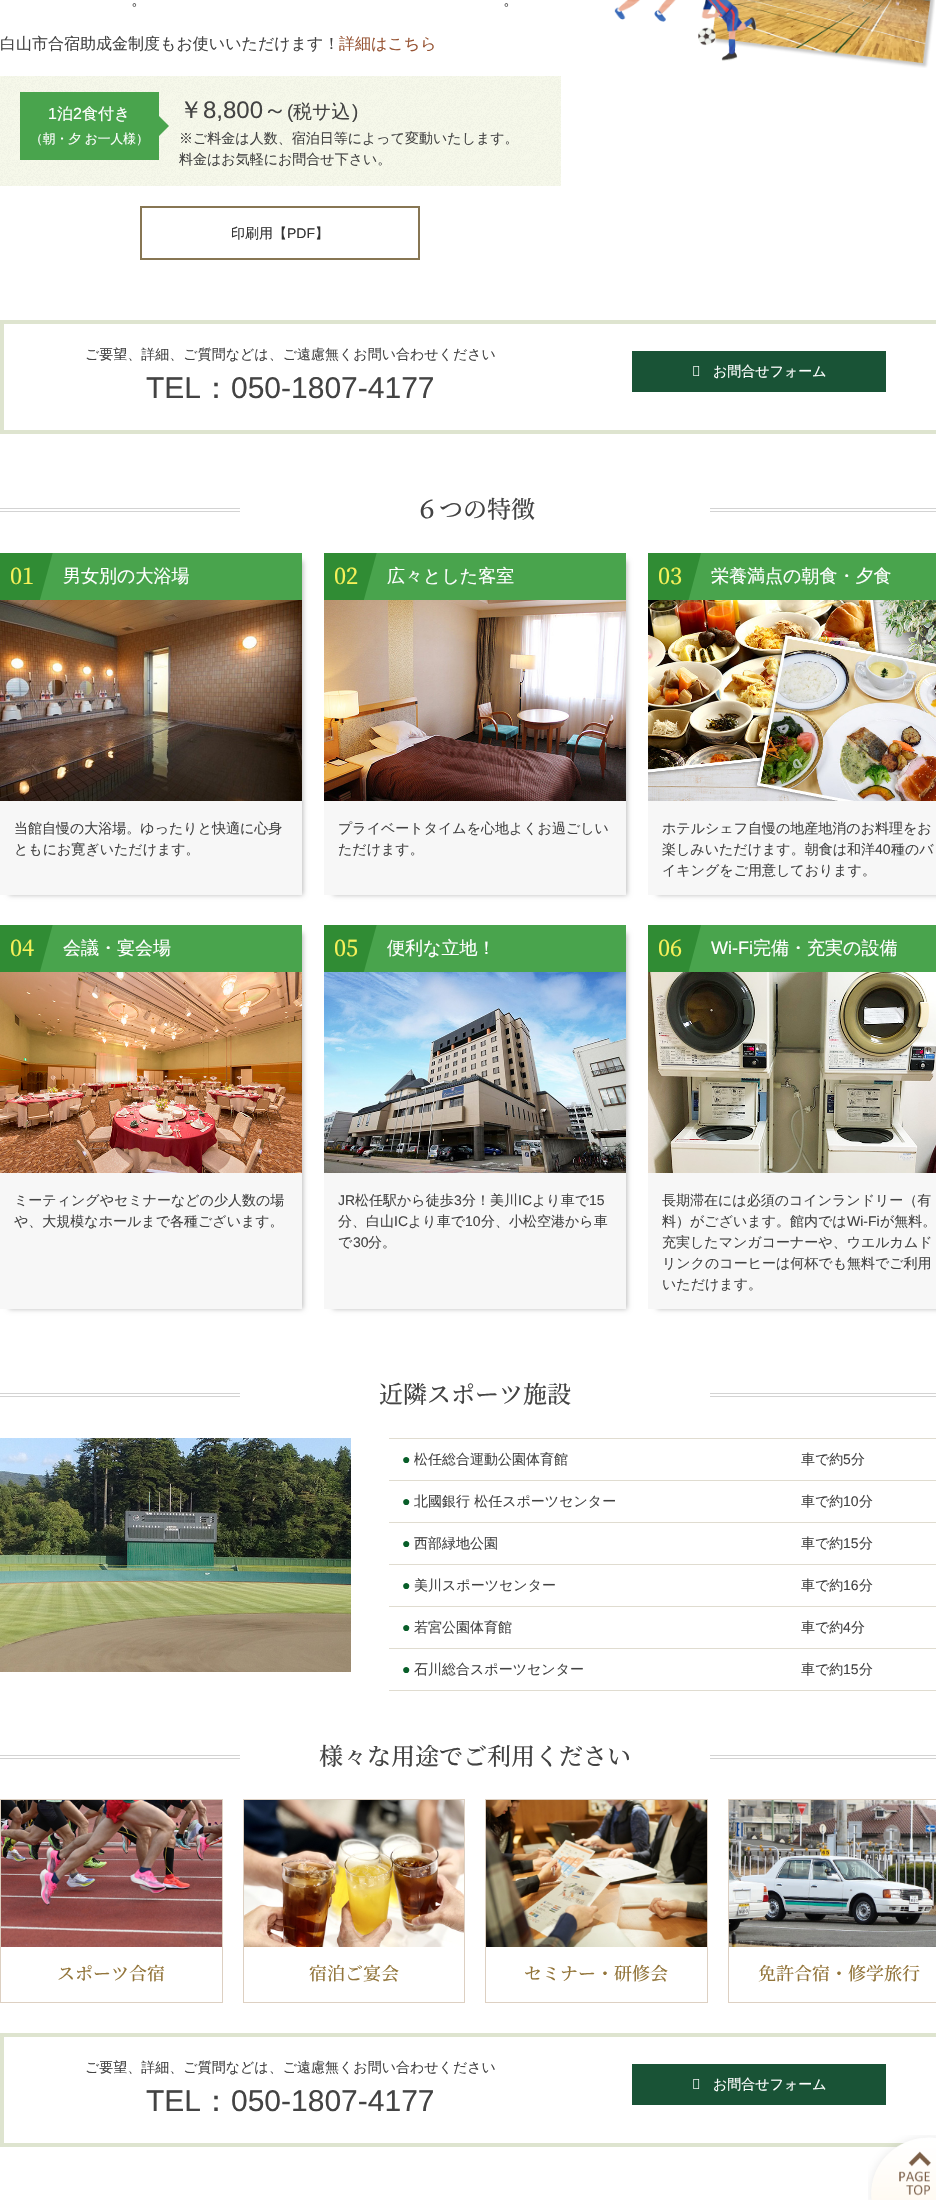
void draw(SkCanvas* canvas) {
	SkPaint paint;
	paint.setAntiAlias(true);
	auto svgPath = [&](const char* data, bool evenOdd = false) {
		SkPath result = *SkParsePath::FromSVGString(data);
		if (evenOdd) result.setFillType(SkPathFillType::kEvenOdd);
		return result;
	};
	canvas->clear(0xffffffff);
	SkFont f1(fontMgr->matchFamilyStyle("WenQuanYi Zen Hei", SkFontStyle(500, SkFontStyle::kNormal_Width, SkFontStyle::kUpright_Slant)), 16);
	f1.setSubpixel(true);
	paint.setColor(0xff434343);
	canvas->drawString("。", 131, 5, f1, paint);
	canvas->drawString("。", 503, 5, f1, paint);
	canvas->drawString("白山市合宿助成金制度もお使いいただけます！", 0, 49, f1, paint);
	paint.setColor(0xff975434);
	canvas->drawString("詳細はこちら", 339, 49, f1, paint);
	canvas->drawImageRect(SkImages::DeferredFromEncodedData(SkData::MakeFromFileName("img1.png")), SkRect::MakeXYWH(0, 76, 561, 110), SkSamplingOptions());
	paint.setColor(0xff49a44d);
	canvas->drawRect(SkRect::MakeXYWH(20, 92, 139, 68), paint);
	SkFont f2(fontMgr->matchFamilyStyle("Liberation Sans", SkFontStyle::Normal()), 16);
	f2.setSubpixel(true);
	paint.setColor(0xffffffff);
	canvas->drawString("1", 48, 119, f2, paint);
	canvas->drawString("泊", 57, 119, f1, paint);
	canvas->drawString("2", 73, 119, f2, paint);
	canvas->drawString("食付き", 82, 119, f1, paint);
	paint.setColor(0xff49a44d);
	canvas->drawPath(svgPath("M159 136V116L169 126Z"), paint);
	SkFont f3(fontMgr->matchFamilyStyle("WenQuanYi Zen Hei", SkFontStyle(500, SkFontStyle::kNormal_Width, SkFontStyle::kUpright_Slant)), 12.75);
	f3.setSubpixel(true);
	paint.setColor(0xffffffff);
	canvas->drawString("（朝・夕 お一人様）", 30, 143, f3, paint);
	SkFont f4(fontMgr->matchFamilyStyle("WenQuanYi Zen Hei", SkFontStyle(500, SkFontStyle::kNormal_Width, SkFontStyle::kUpright_Slant)), 24);
	f4.setSubpixel(true);
	paint.setColor(0xff434343);
	canvas->drawString("￥", 179, 118, f4, paint);
	SkFont f5(fontMgr->matchFamilyStyle("Liberation Sans", SkFontStyle::Normal()), 24);
	f5.setSubpixel(true);
	canvas->drawString("8,800", 203, 118, f5, paint);
	canvas->drawString("～", 263, 118, f4, paint);
	SkFont f6(fontMgr->matchFamilyStyle("Liberation Sans", SkFontStyle::Normal()), 19);
	f6.setSubpixel(true);
	canvas->drawString("(", 287, 118, f6, paint);
	SkFont f7(fontMgr->matchFamilyStyle("WenQuanYi Zen Hei", SkFontStyle(500, SkFontStyle::kNormal_Width, SkFontStyle::kUpright_Slant)), 19);
	f7.setSubpixel(true);
	canvas->drawString("税サ込", 293, 118, f7, paint);
	canvas->drawString(")", 352, 118, f6, paint);
	SkFont f8(fontMgr->matchFamilyStyle("WenQuanYi Zen Hei", SkFontStyle(500, SkFontStyle::kNormal_Width, SkFontStyle::kUpright_Slant)), 14);
	f8.setSubpixel(true);
	canvas->drawString("※ご料金は人数、宿泊日等によって変動いたします。", 179, 143, f8, paint);
	canvas->drawString("料金はお気軽にお問合せ下さい。", 179, 164, f8, paint);
	paint.setStroke(true);
	paint.setStrokeWidth(2);
	paint.setColor(0xff877653);
	canvas->drawRect(SkRect::MakeXYWH(141, 207, 278, 52), paint);
	paint.setStroke(false);
	paint.setColor(0xff333333);
	canvas->drawString("印刷用【", 231, 238, f8, paint);
	SkFont f9(fontMgr->matchFamilyStyle("Liberation Sans", SkFontStyle::Normal()), 14);
	f9.setSubpixel(true);
	canvas->drawString("PDF", 287, 238, f9, paint);
	canvas->drawString("】", 315, 238, f8, paint);
	canvas->drawImageRect(SkImages::DeferredFromEncodedData(SkData::MakeFromFileName("img2.png")), SkRect::MakeXYWH(614, 0, 321, 68), SkSamplingOptions());
	paint.setStroke(true);
	paint.setStrokeWidth(4);
	paint.setColor(0xffdee4cf);
	canvas->drawRect(SkRect::MakeXYWH(2, 322, 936, 110), paint);
	paint.setStroke(false);
	paint.setColor(0xff434343);
	canvas->drawString("ご要望、詳細、ご質問などは、ご遠慮無くお問い合わせください", 85, 359, f8, paint);
	SkFont f10(fontMgr->matchFamilyStyle("Liberation Sans", SkFontStyle::Normal()), 30);
	f10.setSubpixel(true);
	canvas->drawString("TEL", 146, 398, f10, paint);
	SkFont f11(fontMgr->matchFamilyStyle("WenQuanYi Zen Hei", SkFontStyle(500, SkFontStyle::kNormal_Width, SkFontStyle::kUpright_Slant)), 30);
	f11.setSubpixel(true);
	canvas->drawString("：", 201, 398, f11, paint);
	canvas->drawString("050-1807-4177", 231, 398, f10, paint);
	paint.setColor(0xff195336);
	canvas->drawRect(SkRect::MakeXYWH(632, 351, 254, 41), paint);
	canvas->drawImageRect(SkImages::DeferredFromEncodedData(SkData::MakeFromFileName("img3.png")), SkRect::MakeXYWH(693, 366, 7, 10), SkSamplingOptions());
	paint.setColor(0xffffffff);
	canvas->drawString("お問合せフォーム", 713, 376, f8, paint);
	paint.setColor(0xffd3d3d3);
	canvas->drawRect(SkRect::MakeXYWH(0, 508, 240, 1), paint);
	canvas->drawRect(SkRect::MakeXYWH(0, 511, 240, 1), paint);
	SkFont f12(fontMgr->matchFamilyStyle("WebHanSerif", SkFontStyle(500, SkFontStyle::kNormal_Width, SkFontStyle::kUpright_Slant)), 24);
	f12.setSubpixel(true);
	paint.setColor(0xff434343);
	canvas->drawString("６つの特徴", 415, 518, f12, paint);
	paint.setColor(0xffd3d3d3);
	canvas->drawRect(SkRect::MakeXYWH(710, 508, 226, 1), paint);
	canvas->drawRect(SkRect::MakeXYWH(710, 511, 226, 1), paint);
	paint.setColor(0x45000000);
	paint.setMaskFilter(SkMaskFilter::MakeBlur(kNormal_SkBlurStyle, 2.5));
	canvas->drawRect(SkRect::MakeXYWH(9, 561, 294, 334), paint);
	paint.setMaskFilter(nullptr);
	paint.setColor(0xfff7f7f7);
	canvas->drawRect(SkRect::MakeXYWH(0, 801, 302, 94), paint);
	paint.setColor(0xff49a44d);
	canvas->drawRect(SkRect::MakeXYWH(39, 553, 263, 47), paint);
	canvas->save();
	canvas->clipRect(SkRect::MakeXYWH(0, 553, 302, 47));
	paint.setColor(0xff308c34);
	canvas->drawPath(svgPath("M-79 465L66 504L29 640L-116 601Z"), paint);
	canvas->restore();
	SkFont f13(fontMgr->matchFamilyStyle("WebHanSerif", SkFontStyle(500, SkFontStyle::kNormal_Width, SkFontStyle::kUpright_Slant)), 22);
	f13.setSubpixel(true);
	paint.setColor(0xfff7f159);
	canvas->drawString("01", 10, 584, f13, paint);
	SkFont f14(fontMgr->matchFamilyStyle("WenQuanYi Zen Hei", SkFontStyle(500, SkFontStyle::kNormal_Width, SkFontStyle::kUpright_Slant)), 18);
	f14.setSubpixel(true);
	paint.setColor(0xffffffff);
	canvas->drawString("男女別の大浴場", 63, 582, f14, paint);
	canvas->drawImageRect(SkImages::DeferredFromEncodedData(SkData::MakeFromFileName("img4.png")), SkRect::MakeXYWH(0, 600, 302, 201), SkSamplingOptions());
	paint.setColor(0xff434343);
	canvas->drawString("当館自慢の大浴場。ゆったりと快適に心身", 14, 833, f8, paint);
	canvas->drawString("ともにお寛ぎいただけます。", 14, 854, f8, paint);
	paint.setColor(0x45000000);
	paint.setMaskFilter(SkMaskFilter::MakeBlur(kNormal_SkBlurStyle, 2.5));
	canvas->drawRect(SkRect::MakeXYWH(333, 561, 294, 334), paint);
	paint.setMaskFilter(nullptr);
	paint.setColor(0xfff7f7f7);
	canvas->drawRect(SkRect::MakeXYWH(324, 801, 302, 94), paint);
	paint.setColor(0xff49a44d);
	canvas->drawRect(SkRect::MakeXYWH(363, 553, 263, 47), paint);
	canvas->save();
	canvas->clipRect(SkRect::MakeXYWH(324, 553, 302, 47));
	paint.setColor(0xff308c34);
	canvas->drawPath(svgPath("M245 465L390 504L353 640L208 601Z"), paint);
	canvas->restore();
	paint.setColor(0xffffffff);
	canvas->drawString("広々とした客室", 387, 582, f14, paint);
	paint.setColor(0xfff7f159);
	canvas->drawString("02", 334, 584, f13, paint);
	canvas->drawImageRect(SkImages::DeferredFromEncodedData(SkData::MakeFromFileName("img5.png")), SkRect::MakeXYWH(324, 600, 302, 201), SkSamplingOptions());
	paint.setColor(0xff434343);
	canvas->drawString("プライベートタイムを心地よくお過ごしい", 338, 833, f8, paint);
	canvas->drawString("ただけます。", 338, 854, f8, paint);
	paint.setColor(0x45000000);
	paint.setMaskFilter(SkMaskFilter::MakeBlur(kNormal_SkBlurStyle, 2.5));
	canvas->drawRect(SkRect::MakeXYWH(657, 561, 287, 334), paint);
	paint.setMaskFilter(nullptr);
	paint.setColor(0xfff7f7f7);
	canvas->drawRect(SkRect::MakeXYWH(648, 801, 288, 94), paint);
	paint.setColor(0xff49a44d);
	canvas->drawRect(SkRect::MakeXYWH(688, 553, 248, 47), paint);
	canvas->save();
	canvas->clipRect(SkRect::MakeXYWH(648, 553, 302, 47));
	paint.setColor(0xff308c34);
	canvas->drawPath(svgPath("M569 465L714 504L678 640L533 601Z"), paint);
	canvas->restore();
	paint.setColor(0xffffffff);
	canvas->drawString("栄養満点の朝食・夕食", 711, 582, f14, paint);
	paint.setColor(0xfff7f159);
	canvas->drawString("03", 658, 584, f13, paint);
	canvas->drawImageRect(SkImages::DeferredFromEncodedData(SkData::MakeFromFileName("img6.png")), SkRect::MakeXYWH(648, 600, 288, 201), SkSamplingOptions());
	paint.setColor(0xff434343);
	canvas->drawString("ホテルシェフ自慢の地産地消のお料理をお", 662, 833, f8, paint);
	canvas->drawString("楽しみいただけます。朝食は和洋", 662, 854, f8, paint);
	canvas->drawString("40", 875, 854, f9, paint);
	canvas->drawString("種のバ", 891, 854, f8, paint);
	canvas->drawString("イキングをご用意しております。", 662, 875, f8, paint);
	paint.setColor(0x45000000);
	paint.setMaskFilter(SkMaskFilter::MakeBlur(kNormal_SkBlurStyle, 2.5));
	canvas->drawRect(SkRect::MakeXYWH(9, 933, 294, 376), paint);
	paint.setMaskFilter(nullptr);
	paint.setColor(0xfff7f7f7);
	canvas->drawRect(SkRect::MakeXYWH(0, 1173, 302, 136), paint);
	paint.setColor(0xff49a44d);
	canvas->drawRect(SkRect::MakeXYWH(39, 925, 263, 47), paint);
	canvas->save();
	canvas->clipRect(SkRect::MakeXYWH(0, 925, 302, 47));
	paint.setColor(0xff308c34);
	canvas->drawPath(svgPath("M-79 837L66 876L29 1012L-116 973Z"), paint);
	canvas->restore();
	paint.setColor(0xffffffff);
	canvas->drawString("会議・宴会場", 63, 954, f14, paint);
	paint.setColor(0xfff7f159);
	canvas->drawString("04", 10, 956, f13, paint);
	canvas->drawImageRect(SkImages::DeferredFromEncodedData(SkData::MakeFromFileName("img7.png")), SkRect::MakeXYWH(0, 972, 302, 201), SkSamplingOptions());
	paint.setColor(0xff434343);
	canvas->drawString("ミーティングやセミナーなどの少人数の場", 14, 1205, f8, paint);
	canvas->drawString("や、大規模なホールまで各種ございます。", 14, 1226, f8, paint);
	paint.setColor(0x45000000);
	paint.setMaskFilter(SkMaskFilter::MakeBlur(kNormal_SkBlurStyle, 2.5));
	canvas->drawRect(SkRect::MakeXYWH(333, 933, 294, 376), paint);
	paint.setMaskFilter(nullptr);
	paint.setColor(0xfff7f7f7);
	canvas->drawRect(SkRect::MakeXYWH(324, 1173, 302, 136), paint);
	paint.setColor(0xff49a44d);
	canvas->drawRect(SkRect::MakeXYWH(363, 925, 263, 47), paint);
	canvas->save();
	canvas->clipRect(SkRect::MakeXYWH(324, 925, 302, 47));
	paint.setColor(0xff308c34);
	canvas->drawPath(svgPath("M245 837L390 876L353 1012L208 973Z"), paint);
	canvas->restore();
	paint.setColor(0xffffffff);
	canvas->drawString("便利な立地！", 387, 954, f14, paint);
	paint.setColor(0xfff7f159);
	canvas->drawString("05", 334, 956, f13, paint);
	canvas->drawImageRect(SkImages::DeferredFromEncodedData(SkData::MakeFromFileName("img8.png")), SkRect::MakeXYWH(324, 972, 302, 201), SkSamplingOptions());
	paint.setColor(0xff434343);
	canvas->drawString("JR", 338, 1205, f9, paint);
	canvas->drawString("松任駅から徒歩", 355, 1205, f8, paint);
	canvas->drawString("3", 454, 1205, f9, paint);
	canvas->drawString("分！美川", 462, 1205, f8, paint);
	canvas->drawString("IC", 518, 1205, f9, paint);
	canvas->drawString("より車で", 532, 1205, f8, paint);
	canvas->drawString("15", 589, 1205, f9, paint);
	canvas->drawString("分、白山", 338, 1226, f8, paint);
	canvas->drawString("IC", 394, 1226, f9, paint);
	canvas->drawString("より車で", 408, 1226, f8, paint);
	canvas->drawString("10", 465, 1226, f9, paint);
	canvas->drawString("分、小松空港から車", 481, 1226, f8, paint);
	canvas->drawString("で", 338, 1247, f8, paint);
	canvas->drawString("30", 353, 1247, f9, paint);
	canvas->drawString("分。", 368, 1247, f8, paint);
	paint.setColor(0x45000000);
	paint.setMaskFilter(SkMaskFilter::MakeBlur(kNormal_SkBlurStyle, 2.5));
	canvas->drawRect(SkRect::MakeXYWH(657, 933, 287, 376), paint);
	paint.setMaskFilter(nullptr);
	paint.setColor(0xfff7f7f7);
	canvas->drawRect(SkRect::MakeXYWH(648, 1173, 288, 136), paint);
	paint.setColor(0xff49a44d);
	canvas->drawRect(SkRect::MakeXYWH(688, 925, 248, 47), paint);
	canvas->save();
	canvas->clipRect(SkRect::MakeXYWH(648, 925, 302, 47));
	paint.setColor(0xff308c34);
	canvas->drawPath(svgPath("M569 837L714 876L678 1012L533 973Z"), paint);
	canvas->restore();
	paint.setColor(0xffffffff);
	canvas->drawString("完備・充実の設備", 753, 954, f14, paint);
	paint.setColor(0xfff7f159);
	canvas->drawString("06", 658, 956, f13, paint);
	SkFont f15(fontMgr->matchFamilyStyle("Liberation Sans", SkFontStyle::Normal()), 18);
	f15.setSubpixel(true);
	paint.setColor(0xffffffff);
	canvas->drawString("Wi-Fi", 711, 954, f15, paint);
	canvas->drawImageRect(SkImages::DeferredFromEncodedData(SkData::MakeFromFileName("img9.png")), SkRect::MakeXYWH(648, 972, 288, 201), SkSamplingOptions());
	paint.setColor(0xff434343);
	canvas->drawString("長期滞在には必須のコインランドリー（有", 662, 1205, f8, paint);
	canvas->drawString("料）がございます。館内では", 662, 1226, f8, paint);
	canvas->drawString("Wi-Fi", 847, 1226, f9, paint);
	canvas->drawString("が無料。", 880, 1226, f8, paint);
	canvas->drawString("充実したマンガコーナーや、ウエルカムド", 662, 1247, f8, paint);
	canvas->drawString("リンクのコーヒーは何杯でも無料でご利用", 662, 1268, f8, paint);
	canvas->drawString("いただけます。", 662, 1289, f8, paint);
	paint.setColor(0xffd3d3d3);
	canvas->drawRect(SkRect::MakeXYWH(0, 1393, 240, 1), paint);
	canvas->drawRect(SkRect::MakeXYWH(0, 1396, 240, 1), paint);
	paint.setColor(0xff434343);
	canvas->drawString("近隣スポーツ施設", 379, 1403, f12, paint);
	paint.setColor(0xffd3d3d3);
	canvas->drawRect(SkRect::MakeXYWH(710, 1393, 226, 1), paint);
	canvas->drawRect(SkRect::MakeXYWH(710, 1396, 226, 1), paint);
	canvas->drawImageRect(SkImages::DeferredFromEncodedData(SkData::MakeFromFileName("img10.png")), SkRect::MakeXYWH(0, 1438, 351, 234), SkSamplingOptions());
	paint.setColor(0xff085e29);
	canvas->drawString("●", 402, 1464, f9, paint);
	paint.setColor(0xff434343);
	canvas->drawString("松任総合運動公園体育館", 414, 1464, f8, paint);
	paint.setColor(0xffe0dcd0);
	canvas->drawRect(SkRect::MakeXYWH(389, 1438, 547, 1), paint);
	paint.setColor(0xff434343);
	canvas->drawString("車で約", 801, 1464, f8, paint);
	canvas->drawString("5", 843, 1464, f9, paint);
	canvas->drawString("分", 851, 1464, f8, paint);
	paint.setColor(0xff085e29);
	canvas->drawString("●", 402, 1506, f9, paint);
	paint.setColor(0xff434343);
	canvas->drawString("北國銀行 松任スポーツセンター", 414, 1506, f8, paint);
	paint.setColor(0xffe0dcd0);
	canvas->drawRect(SkRect::MakeXYWH(389, 1480, 547, 1), paint);
	paint.setColor(0xff434343);
	canvas->drawString("車で約", 801, 1506, f8, paint);
	canvas->drawString("10", 843, 1506, f9, paint);
	canvas->drawString("分", 859, 1506, f8, paint);
	paint.setColor(0xff085e29);
	canvas->drawString("●", 402, 1548, f9, paint);
	paint.setColor(0xff434343);
	canvas->drawString("西部緑地公園", 414, 1548, f8, paint);
	paint.setColor(0xffe0dcd0);
	canvas->drawRect(SkRect::MakeXYWH(389, 1522, 547, 1), paint);
	paint.setColor(0xff434343);
	canvas->drawString("車で約", 801, 1548, f8, paint);
	canvas->drawString("15", 843, 1548, f9, paint);
	canvas->drawString("分", 859, 1548, f8, paint);
	paint.setColor(0xff085e29);
	canvas->drawString("●", 402, 1590, f9, paint);
	paint.setColor(0xff434343);
	canvas->drawString("美川スポーツセンター", 414, 1590, f8, paint);
	paint.setColor(0xffe0dcd0);
	canvas->drawRect(SkRect::MakeXYWH(389, 1564, 547, 1), paint);
	paint.setColor(0xff434343);
	canvas->drawString("車で約", 801, 1590, f8, paint);
	canvas->drawString("16", 843, 1590, f9, paint);
	canvas->drawString("分", 859, 1590, f8, paint);
	paint.setColor(0xff085e29);
	canvas->drawString("●", 402, 1632, f9, paint);
	paint.setColor(0xff434343);
	canvas->drawString("若宮公園体育館", 414, 1632, f8, paint);
	paint.setColor(0xffe0dcd0);
	canvas->drawRect(SkRect::MakeXYWH(389, 1606, 547, 1), paint);
	paint.setColor(0xff434343);
	canvas->drawString("車で約", 801, 1632, f8, paint);
	canvas->drawString("4", 843, 1632, f9, paint);
	canvas->drawString("分", 851, 1632, f8, paint);
	paint.setColor(0xff085e29);
	canvas->drawString("●", 402, 1674, f9, paint);
	paint.setColor(0xff434343);
	canvas->drawString("石川総合スポーツセンター", 414, 1674, f8, paint);
	paint.setColor(0xffe0dcd0);
	canvas->drawRect(SkRect::MakeXYWH(389, 1648, 547, 1), paint);
	canvas->drawRect(SkRect::MakeXYWH(389, 1690, 547, 1), paint);
	paint.setColor(0xff434343);
	canvas->drawString("車で約", 801, 1674, f8, paint);
	canvas->drawString("15", 843, 1674, f9, paint);
	canvas->drawString("分", 859, 1674, f8, paint);
	paint.setColor(0xffd3d3d3);
	canvas->drawRect(SkRect::MakeXYWH(0, 1755, 240, 1), paint);
	canvas->drawRect(SkRect::MakeXYWH(0, 1758, 240, 1), paint);
	paint.setColor(0xff434343);
	canvas->drawString("様", 319, 1765, f12, paint);
	canvas->drawString("々", 343, 1765, f4, paint);
	canvas->drawString("な用途でご利用ください", 367, 1765, f12, paint);
	paint.setColor(0xffd3d3d3);
	canvas->drawRect(SkRect::MakeXYWH(710, 1755, 226, 1), paint);
	canvas->drawRect(SkRect::MakeXYWH(710, 1758, 226, 1), paint);
	paint.setStroke(true);
	paint.setStrokeWidth(1);
	paint.setColor(0xffddd0c2);
	canvas->drawRect(SkRect::MakeXYWH(0.5, 1799.5, 222, 203), paint);
	canvas->drawImageRect(SkImages::DeferredFromEncodedData(SkData::MakeFromFileName("img11.png")), SkRect::MakeXYWH(1, 1800, 221, 147), SkSamplingOptions());
	SkFont f16(fontMgr->matchFamilyStyle("WebHanSerif", SkFontStyle(500, SkFontStyle::kNormal_Width, SkFontStyle::kUpright_Slant)), 18);
	f16.setSubpixel(true);
	paint.setStroke(false);
	paint.setColor(0xff927439);
	canvas->drawString("スポーツ合宿", 57, 1980, f16, paint);
	paint.setStroke(true);
	paint.setColor(0xffddd0c2);
	canvas->drawRect(SkRect::MakeXYWH(243.5, 1799.5, 221, 203), paint);
	canvas->drawImageRect(SkImages::DeferredFromEncodedData(SkData::MakeFromFileName("img12.png")), SkRect::MakeXYWH(244, 1800, 220, 147), SkSamplingOptions());
	paint.setStroke(false);
	paint.setColor(0xff927439);
	canvas->drawString("宿泊ご宴会", 309, 1980, f16, paint);
	paint.setStroke(true);
	paint.setColor(0xffddd0c2);
	canvas->drawRect(SkRect::MakeXYWH(485.5, 1799.5, 222, 203), paint);
	canvas->drawImageRect(SkImages::DeferredFromEncodedData(SkData::MakeFromFileName("img13.png")), SkRect::MakeXYWH(486, 1800, 221, 147), SkSamplingOptions());
	paint.setStroke(false);
	paint.setColor(0xff927439);
	canvas->drawString("セミナー・研修会", 524, 1980, f16, paint);
	paint.setStroke(true);
	paint.setColor(0xffddd0c2);
	canvas->drawRect(SkRect::MakeXYWH(728.5, 1799.5, 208, 203), paint);
	canvas->drawImageRect(SkImages::DeferredFromEncodedData(SkData::MakeFromFileName("img14.png")), SkRect::MakeXYWH(729, 1800, 207, 147), SkSamplingOptions());
	paint.setStroke(false);
	paint.setColor(0xff927439);
	canvas->drawString("免許合宿・修学旅行", 758, 1980, f16, paint);
	paint.setStroke(true);
	paint.setStrokeWidth(4);
	paint.setColor(0xffdee4cf);
	canvas->drawRect(SkRect::MakeXYWH(2, 2035, 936, 110), paint);
	paint.setStroke(false);
	paint.setColor(0xff434343);
	canvas->drawString("ご要望、詳細、ご質問などは、ご遠慮無くお問い合わせください", 85, 2072, f8, paint);
	canvas->drawString("TEL", 146, 2111, f10, paint);
	canvas->drawString("：", 201, 2111, f11, paint);
	canvas->drawString("050-1807-4177", 231, 2111, f10, paint);
	paint.setColor(0xff195336);
	canvas->drawRect(SkRect::MakeXYWH(632, 2064, 254, 41), paint);
	canvas->drawImageRect(SkImages::DeferredFromEncodedData(SkData::MakeFromFileName("img3.png")), SkRect::MakeXYWH(693, 2079, 7, 10), SkSamplingOptions());
	paint.setColor(0xffffffff);
	canvas->drawString("お問合せフォーム", 713, 2089, f8, paint);
	canvas->drawImageRect(SkImages::DeferredFromEncodedData(SkData::MakeFromFileName("img15.png")), SkRect::MakeXYWH(868, 2135, 68, 65), SkSamplingOptions());
}
